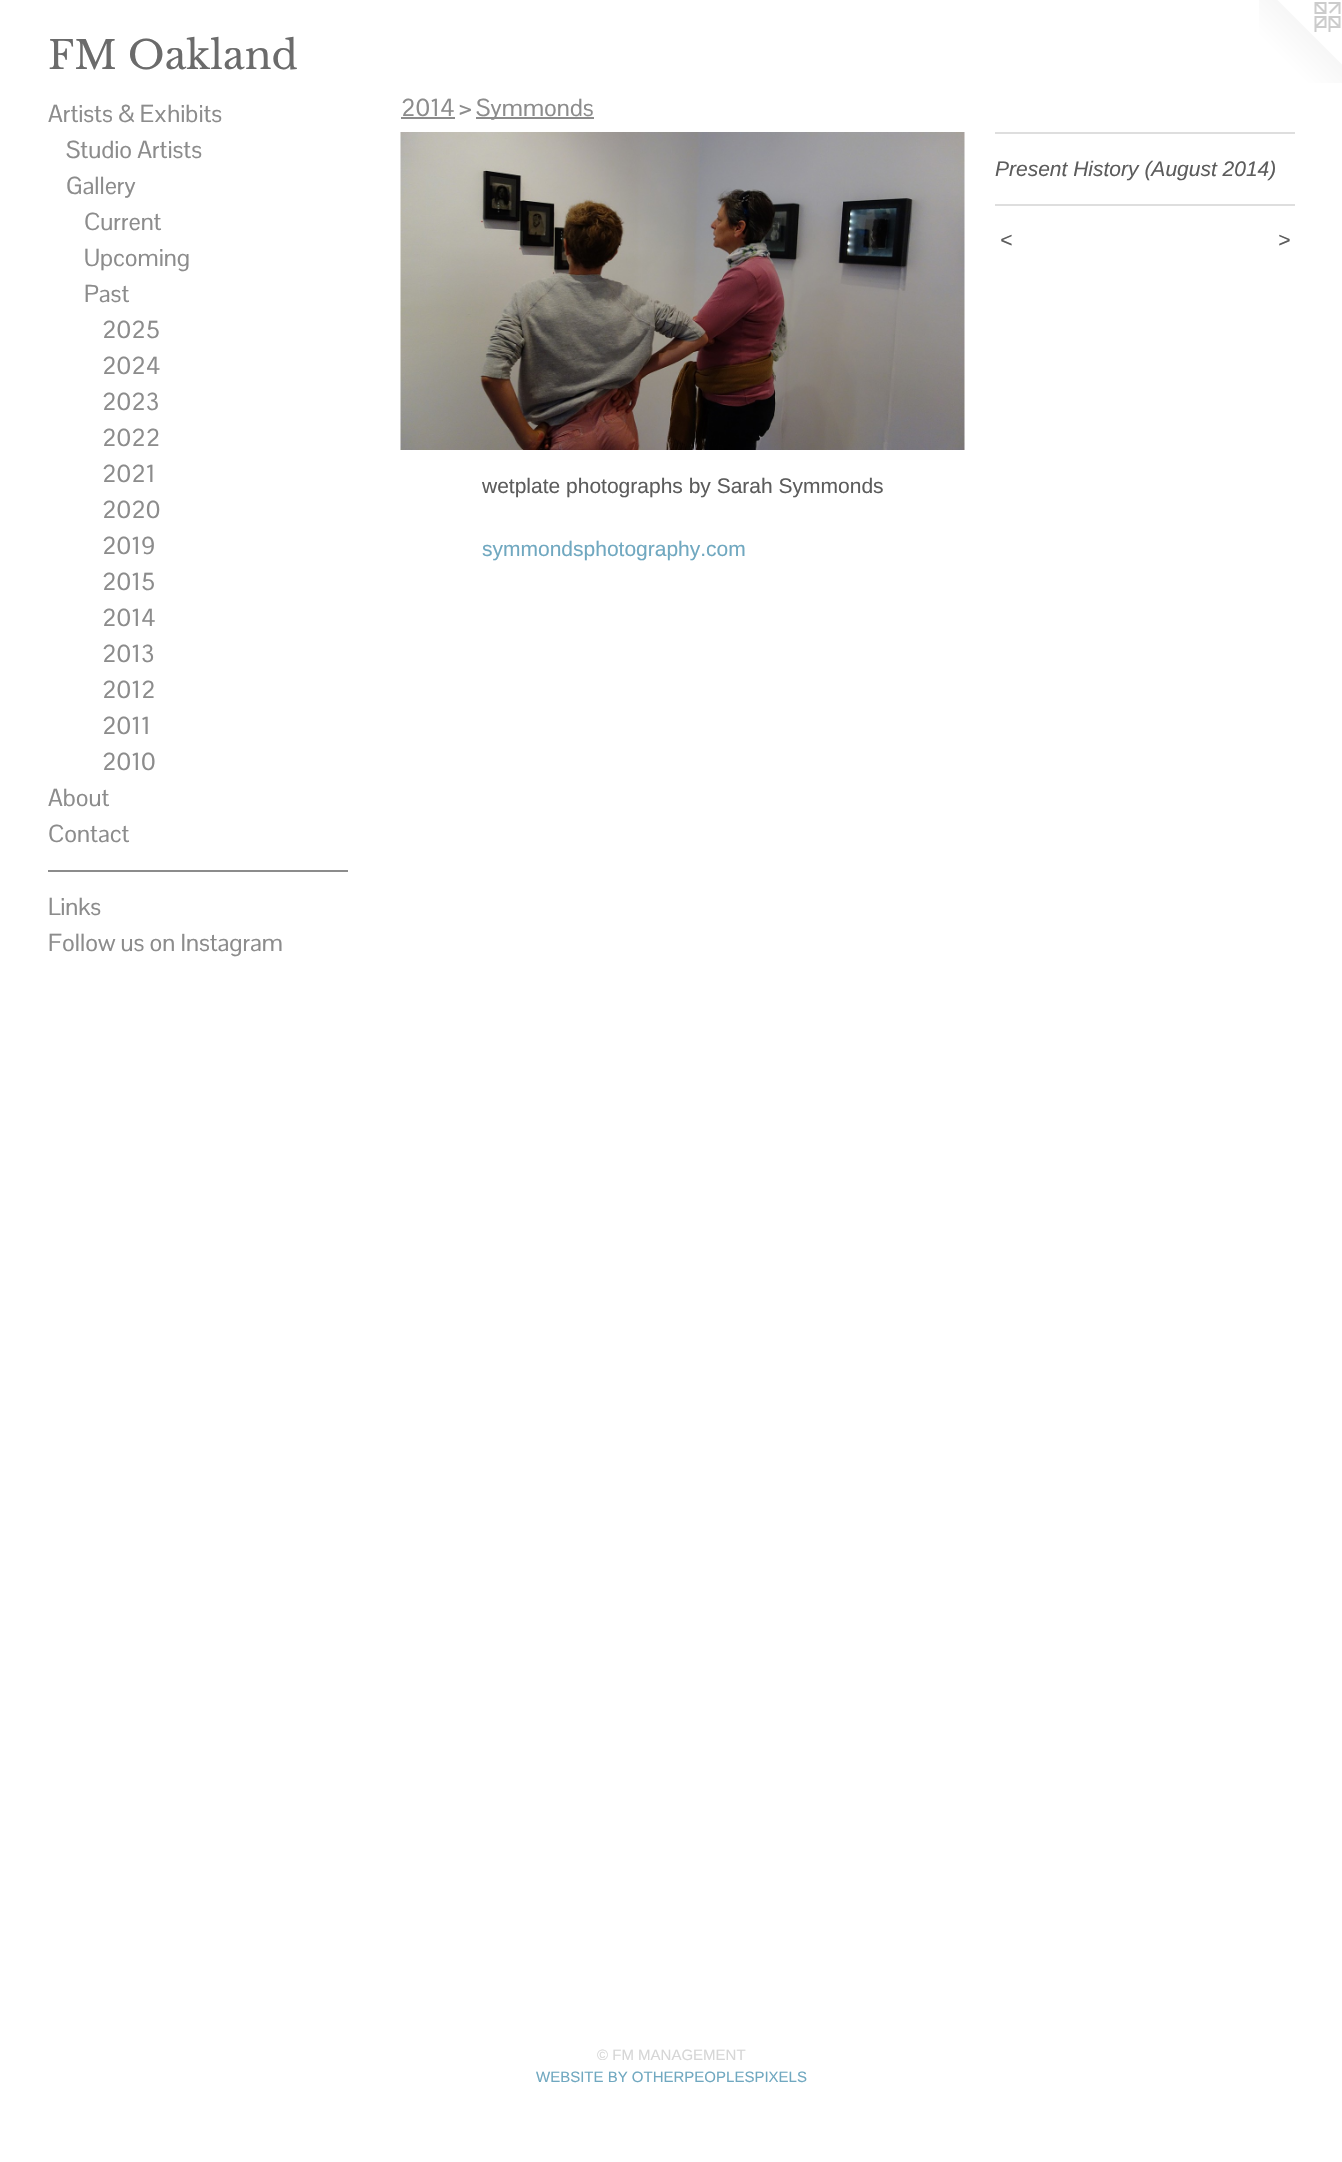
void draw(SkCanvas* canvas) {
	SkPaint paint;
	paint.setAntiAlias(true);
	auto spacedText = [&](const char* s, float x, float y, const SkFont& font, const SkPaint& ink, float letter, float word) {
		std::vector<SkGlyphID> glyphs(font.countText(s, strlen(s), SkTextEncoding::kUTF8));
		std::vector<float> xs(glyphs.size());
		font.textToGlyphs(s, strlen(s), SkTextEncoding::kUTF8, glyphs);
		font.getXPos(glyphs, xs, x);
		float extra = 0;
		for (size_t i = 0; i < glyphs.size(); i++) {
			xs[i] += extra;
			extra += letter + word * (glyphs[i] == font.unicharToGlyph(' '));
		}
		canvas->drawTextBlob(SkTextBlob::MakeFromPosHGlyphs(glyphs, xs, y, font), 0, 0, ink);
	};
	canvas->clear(0xffffffff);
	SkFont f1(fontMgr->matchFamilyStyle("Libre Baskerville", SkFontStyle::Normal()), 39);
	f1.setSubpixel(true);
	paint.setColor(0xff6b6b6b);
	canvas->drawString("FM Oakland", 48, 69, f1, paint);
	canvas->drawImageRect(SkImages::DeferredFromEncodedData(SkData::MakeFromFileName("img1.png")), SkRect::MakeXYWH(1259, 0, 83, 83), SkSamplingOptions());
	SkFont f2(fontMgr->matchFamilyStyle("Pontano Sans", SkFontStyle::Normal()), 24);
	f2.setSubpixel(true);
	paint.setColor(0xff8c8c8c);
	canvas->drawString("Artists & Exhibits", 48, 122, f2, paint);
	canvas->drawString("Studio Artists", 66, 158, f2, paint);
	canvas->drawString("Gallery", 66, 194, f2, paint);
	canvas->drawString("Current", 84, 230, f2, paint);
	canvas->drawString("Upcoming", 84, 266, f2, paint);
	canvas->drawString("Past", 84, 302, f2, paint);
	canvas->drawString("2025", 102, 338, f2, paint);
	canvas->drawString("2024", 102, 374, f2, paint);
	canvas->drawString("2023", 102, 410, f2, paint);
	canvas->drawString("2022", 102, 446, f2, paint);
	canvas->drawString("2021", 102, 482, f2, paint);
	canvas->drawString("2020", 102, 518, f2, paint);
	canvas->drawString("2019", 102, 554, f2, paint);
	canvas->drawString("2015", 102, 590, f2, paint);
	canvas->drawString("2014", 102, 626, f2, paint);
	canvas->drawString("2013", 102, 662, f2, paint);
	canvas->drawString("2012", 102, 698, f2, paint);
	canvas->drawString("2011", 102, 734, f2, paint);
	canvas->drawString("2010", 102, 770, f2, paint);
	canvas->drawString("About", 48, 806, f2, paint);
	canvas->drawString("Contact", 48, 842, f2, paint);
	canvas->drawRect(SkRect::MakeXYWH(48, 870, 300, 2), paint);
	canvas->drawString("Links", 48, 915, f2, paint);
	canvas->drawString("Follow us on Instagram", 48, 951, f2, paint);
	canvas->drawString("2014 >", 401, 116, f2, paint);
	canvas->drawRect(SkRect::MakeXYWH(401, 117, 54, 2), paint);
	canvas->drawRect(SkRect::MakeXYWH(476, 117, 118, 2), paint);
	canvas->drawString("Symmonds", 476, 116, f2, paint);
	canvas->drawImageRect(SkImages::DeferredFromEncodedData(SkData::MakeFromFileName("img2.png")), SkRect::MakeXYWH(400, 132, 565, 318), SkSamplingOptions());
	paint.setColor(0xffdedede);
	canvas->drawRect(SkRect::MakeXYWH(995, 132, 300, 2), paint);
	SkFont f3(fontMgr->matchFamilyStyle("Liberation Sans", SkFontStyle::Italic()), 21);
	f3.setSubpixel(true);
	paint.setColor(0xff5c5c5c);
	canvas->drawString("Present History (August 2014)", 995, 176, f3, paint);
	paint.setColor(0xffdedede);
	canvas->drawRect(SkRect::MakeXYWH(995, 204, 300, 2), paint);
	paint.setColor(0xff5c5c5c);
	spacedText("<", 1000, 247, f3, paint, 2, 0);
	spacedText(">", 1278, 247, f3, paint, 2, 0);
	SkFont f4(fontMgr->matchFamilyStyle("Liberation Sans", SkFontStyle::Normal()), 21);
	f4.setSubpixel(true);
	canvas->drawString("wetplate photographs by Sarah Symmonds", 482, 493, f4, paint);
	paint.setColor(0xff70a8c0);
	canvas->drawString("symmondsphotography.com", 482, 556, f4, paint);
	SkFont f5(fontMgr->matchFamilyStyle("Liberation Sans", SkFontStyle::Normal()), 15);
	f5.setSubpixel(true);
	paint.setColor(0xffd6d6d6);
	canvas->drawString("© FM MANAGEMENT", 597, 2060, f5, paint);
	paint.setColor(0xff70a8c0);
	canvas->drawString("WEBSITE BY OTHERPEOPLESPIXELS", 536, 2082, f5, paint);
}
